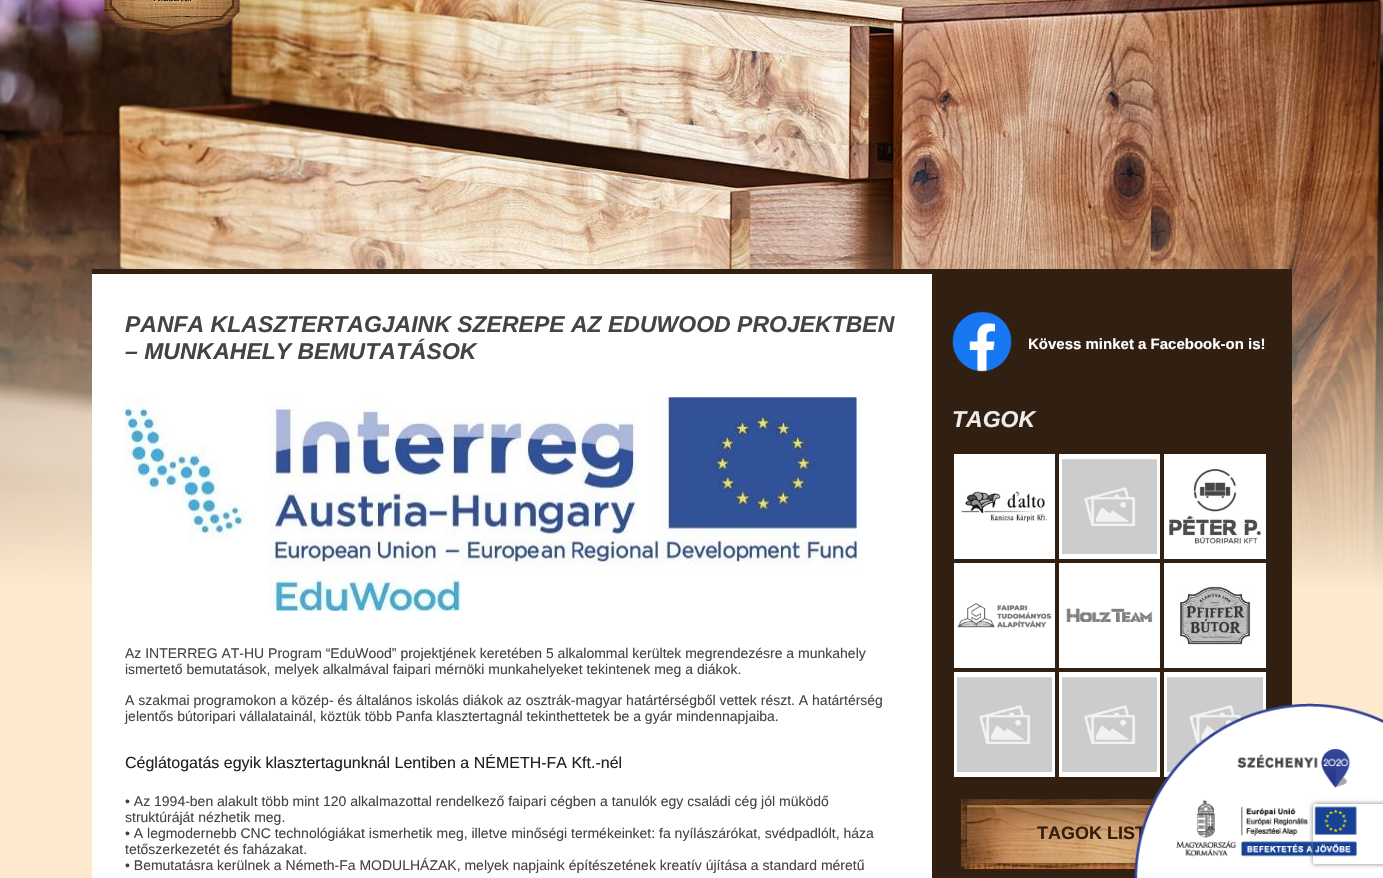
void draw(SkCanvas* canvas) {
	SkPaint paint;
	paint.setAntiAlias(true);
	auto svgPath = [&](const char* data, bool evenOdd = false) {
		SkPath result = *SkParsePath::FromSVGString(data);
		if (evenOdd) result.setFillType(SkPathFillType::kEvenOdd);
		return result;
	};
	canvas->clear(0xfffde9cd);
	canvas->drawImageRect(SkImages::DeferredFromEncodedData(SkData::MakeFromFileName("img1.png")), SkRect::MakeXYWH(0, 0, 1383, 589), SkSamplingOptions());
	canvas->drawImageRect(SkImages::DeferredFromEncodedData(SkData::MakeFromFileName("img2.png")), SkRect::MakeXYWH(104, 0, 136, 36), SkSamplingOptions());
	paint.setColor(0xffffffff);
	canvas->drawRect(SkRect::MakeXYWH(92, 274, 840, 604), paint);
	paint.setColor(0xff311f12);
	canvas->drawRect(SkRect::MakeXYWH(92, 269, 1200, 5), paint);
	SkFont f1(fontMgr->matchFamilyStyle("Liberation Sans", SkFontStyle::BoldItalic()), 23);
	f1.setSubpixel(true);
	paint.setColor(0xff444444);
	canvas->drawString("PANFA KLASZTERTAGJAINK SZEREPE AZ EDUWOOD PROJEKTBEN", 125, 332, f1, paint);
	canvas->drawString("– MUNKAHELY BEMUTATÁSOK", 125, 359, f1, paint);
	canvas->drawImageRect(SkImages::DeferredFromEncodedData(SkData::MakeFromFileName("img3.png")), SkRect::MakeXYWH(125, 397, 732, 214), SkSamplingOptions());
	SkFont f2(fontMgr->matchFamilyStyle("Liberation Sans", SkFontStyle::Normal()), 14);
	f2.setSubpixel(true);
	canvas->drawString("Az INTERREG AT-HU Program “EduWood” projektjének keretében 5 alkalommal kerültek megrendezésre a munkahely", 125, 658, f2, paint);
	canvas->drawString("ismertető bemutatások, melyek alkalmával faipari mérnöki munkahelyeket tekintenek meg a diákok.", 125, 674, f2, paint);
	canvas->drawString("A szakmai programokon a közép- és általános iskolás diákok az osztrák-magyar határtérségből vettek részt. A határtérség", 125, 705, f2, paint);
	canvas->drawString("jelentős bútoripari vállalatainál, köztük több Panfa klasztertagnál tekinthettetek be a gyár mindennapjaiba.", 125, 721, f2, paint);
	SkFont f3(fontMgr->matchFamilyStyle("Liberation Sans", SkFontStyle::Normal()), 16);
	f3.setSubpixel(true);
	paint.setColor(0xff212121);
	canvas->drawString("Céglátogatás egyik klasztertagunknál Lentiben a NÉMETH-FA Kft.-nél", 125, 768, f3, paint);
	paint.setColor(0xff444444);
	canvas->drawString("• Az 1994-ben alakult több mint 120 alkalmazottal rendelkező faipari cégben a tanulók egy családi cég jól müködő", 125, 806, f2, paint);
	canvas->drawString("struktúráját nézhetik meg.", 125, 822, f2, paint);
	canvas->drawString("• A legmodernebb CNC technológiákat ismerhetik meg, illetve minőségi termékeinket: fa nyílászárókat, svédpadlólt, háza", 125, 838, f2, paint);
	canvas->drawString("tetőszerkezetét és faházakat.", 125, 854, f2, paint);
	canvas->drawString("• Bemutatásra kerülnek a Németh-Fa MODULHÁZAK, melyek napjaink építészetének kreatív újítása a standard méretű", 125, 870, f2, paint);
	paint.setColor(0xff311f12);
	canvas->drawRect(SkRect::MakeXYWH(932, 274, 360, 604), paint);
	canvas->drawImageRect(SkImages::DeferredFromEncodedData(SkData::MakeFromFileName("img4.png")), SkRect::MakeXYWH(952, 311, 60, 61), SkSamplingOptions());
	SkFont f4(fontMgr->matchFamilyStyle("Liberation Sans", SkFontStyle::Bold()), 15);
	f4.setSubpixel(true);
	paint.setColor(0xffffffff);
	canvas->drawString("Kövess minket a Facebook-on is!", 1028, 349, f4, paint);
	paint.setColor(0xffefebe9);
	canvas->drawString("TAGOK", 952, 427, f1, paint);
	paint.setColor(0xffffffff);
	canvas->drawRect(SkRect::MakeXYWH(954, 454, 101, 105), paint);
	canvas->drawImageRect(SkImages::DeferredFromEncodedData(SkData::MakeFromFileName("img5.png")), SkRect::MakeXYWH(961, 491, 86, 31), SkSamplingOptions());
	canvas->drawRect(SkRect::MakeXYWH(1059, 454, 101, 105), paint);
	canvas->drawImageRect(SkImages::DeferredFromEncodedData(SkData::MakeFromFileName("img6.png")), SkRect::MakeXYWH(1062, 459, 95, 95), SkSamplingOptions());
	canvas->drawRect(SkRect::MakeXYWH(1164, 454, 102, 105), paint);
	canvas->drawImageRect(SkImages::DeferredFromEncodedData(SkData::MakeFromFileName("img7.png")), SkRect::MakeXYWH(1169, 468, 92, 76), SkSamplingOptions());
	canvas->drawRect(SkRect::MakeXYWH(954, 563, 101, 105), paint);
	canvas->drawImageRect(SkImages::DeferredFromEncodedData(SkData::MakeFromFileName("img8.png")), SkRect::MakeXYWH(957, 603, 95, 25), SkSamplingOptions());
	canvas->drawRect(SkRect::MakeXYWH(1059, 563, 101, 105), paint);
	canvas->drawImageRect(SkImages::DeferredFromEncodedData(SkData::MakeFromFileName("img9.png")), SkRect::MakeXYWH(1066, 608, 87, 14), SkSamplingOptions());
	canvas->drawRect(SkRect::MakeXYWH(1164, 563, 102, 105), paint);
	canvas->drawImageRect(SkImages::DeferredFromEncodedData(SkData::MakeFromFileName("img10.png")), SkRect::MakeXYWH(1180, 586, 71, 59), SkSamplingOptions());
	canvas->drawRect(SkRect::MakeXYWH(954, 672, 101, 105), paint);
	canvas->drawImageRect(SkImages::DeferredFromEncodedData(SkData::MakeFromFileName("img6.png")), SkRect::MakeXYWH(957, 677, 95, 95), SkSamplingOptions());
	canvas->drawRect(SkRect::MakeXYWH(1059, 672, 101, 105), paint);
	canvas->drawImageRect(SkImages::DeferredFromEncodedData(SkData::MakeFromFileName("img6.png")), SkRect::MakeXYWH(1062, 677, 95, 95), SkSamplingOptions());
	canvas->drawRect(SkRect::MakeXYWH(1164, 672, 102, 105), paint);
	canvas->drawImageRect(SkImages::DeferredFromEncodedData(SkData::MakeFromFileName("img11.png")), SkRect::MakeXYWH(1167, 677, 96, 95), SkSamplingOptions());
	canvas->drawImageRect(SkImages::DeferredFromEncodedData(SkData::MakeFromFileName("img12.png")), SkRect::MakeXYWH(961, 799, 193, 70), SkSamplingOptions());
	SkFont f5(fontMgr->matchFamilyStyle("Liberation Sans", SkFontStyle::Bold()), 18);
	f5.setSubpixel(true);
	paint.setColor(0xff331d0e);
	canvas->drawString("TAGOK LIST", 1037, 839, f5, paint);
	canvas->drawImageRect(SkImages::DeferredFromEncodedData(SkData::MakeFromFileName("img13.png")), SkRect::MakeXYWH(1134, 703, 249, 175), SkSamplingOptions());
	canvas->save();
	canvas->clipPath(svgPath("M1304 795H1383V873H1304ZM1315 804H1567C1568 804 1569 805 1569 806V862C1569 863 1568 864 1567 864H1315C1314 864 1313 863 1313 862V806C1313 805 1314 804 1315 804Z", true), true);
	paint.setColor(0xff808080);
	paint.setMaskFilter(SkMaskFilter::MakeBlur(kNormal_SkBlurStyle, 2.5));
	canvas->drawRoundRect(SkRect::MakeXYWH(1313, 804, 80, 60), 2, 2, paint);
	paint.setMaskFilter(nullptr);
	canvas->restore();
}
